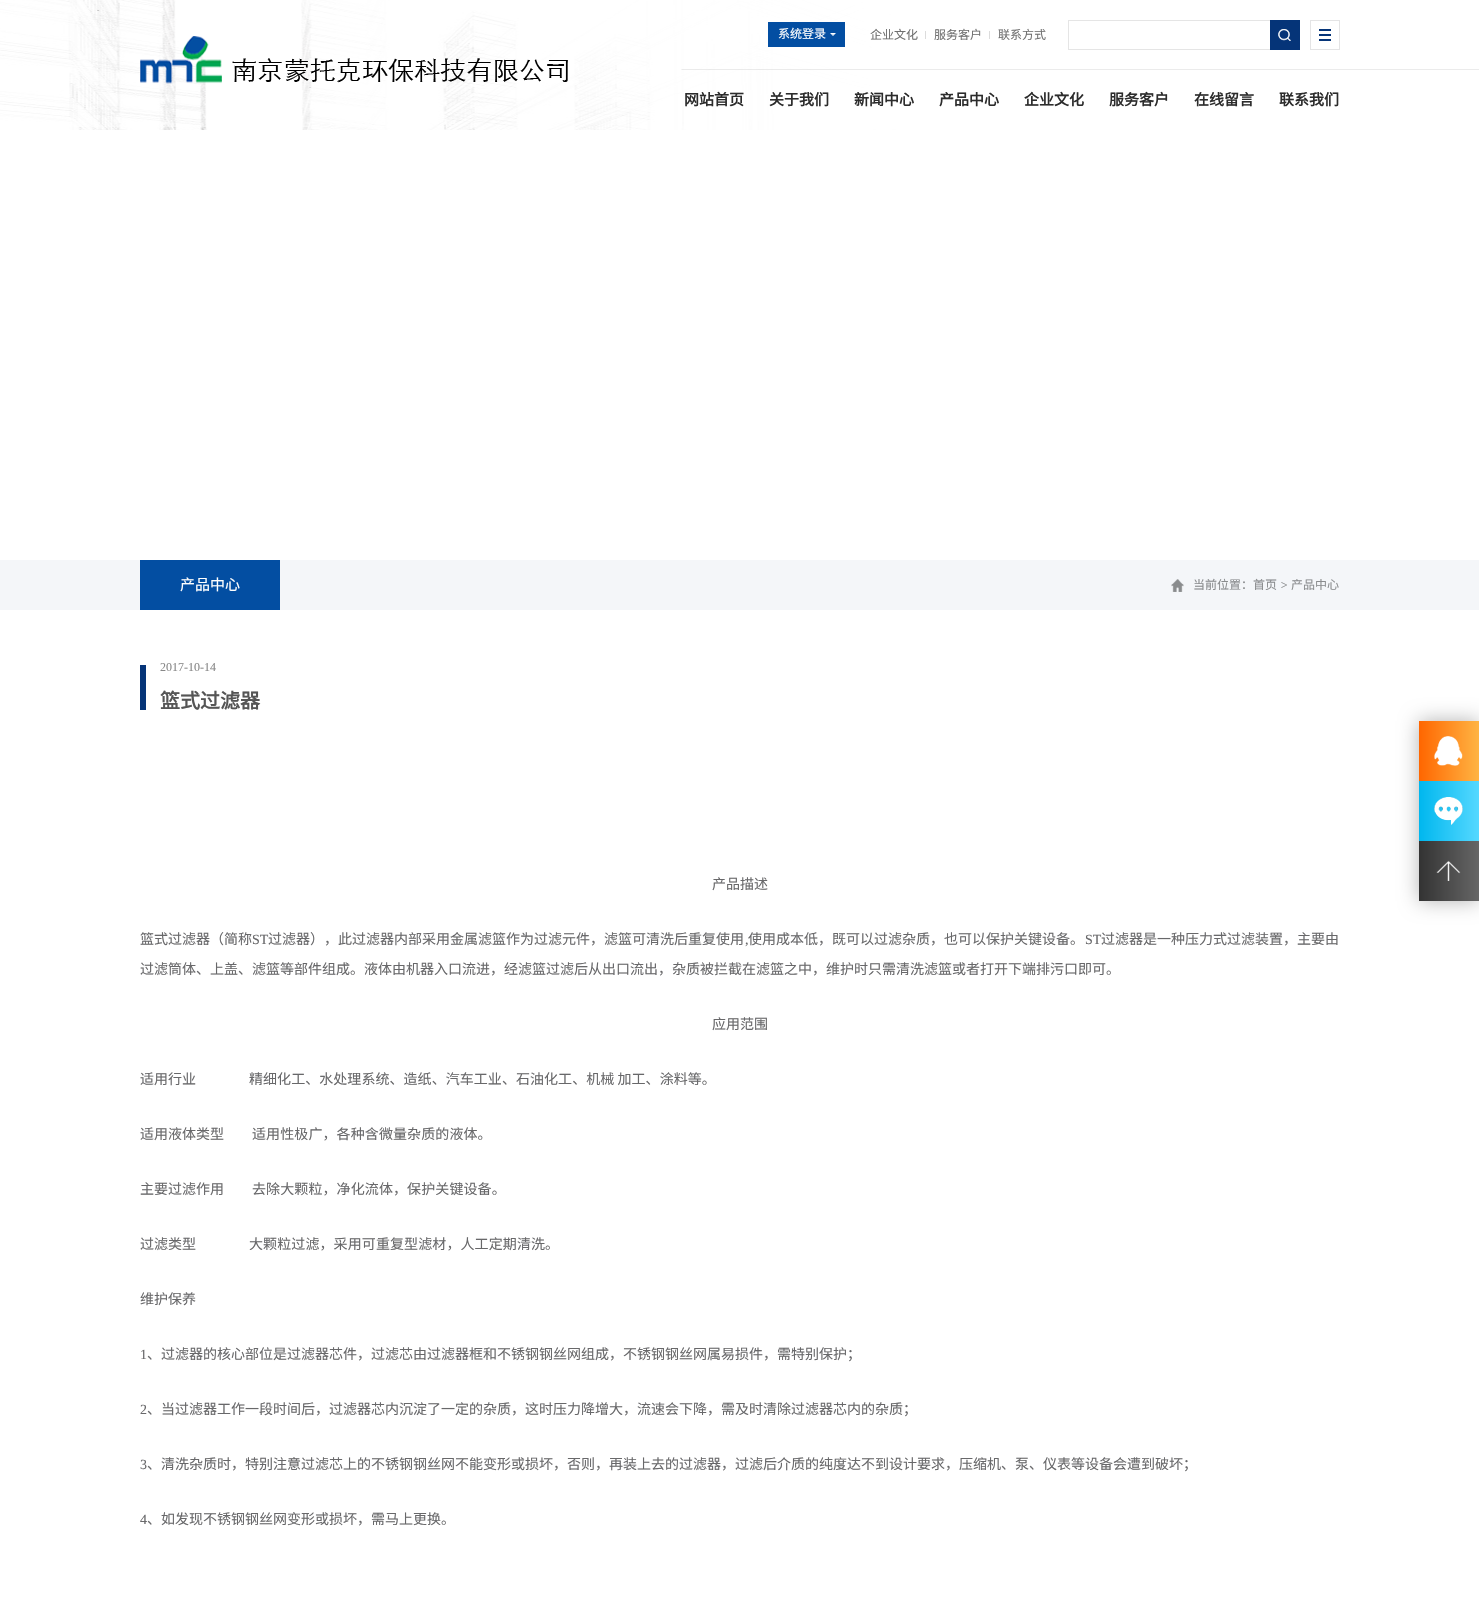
void draw(SkCanvas* canvas) {
	SkPaint paint;
	paint.setAntiAlias(true);
	auto spacedText = [&](const char* s, float x, float y, const SkFont& font, const SkPaint& ink, float letter, float word) {
		std::vector<SkGlyphID> glyphs(font.countText(s, strlen(s), SkTextEncoding::kUTF8));
		std::vector<float> xs(glyphs.size());
		font.textToGlyphs(s, strlen(s), SkTextEncoding::kUTF8, glyphs);
		font.getXPos(glyphs, xs, x);
		float extra = 0;
		for (size_t i = 0; i < glyphs.size(); i++) {
			xs[i] += extra;
			extra += letter + word * (glyphs[i] == font.unicharToGlyph(' '));
		}
		canvas->drawTextBlob(SkTextBlob::MakeFromPosHGlyphs(glyphs, xs, y, font), 0, 0, ink);
	};
	canvas->clear(0xffffffff);
	canvas->drawImageRect(SkImages::DeferredFromEncodedData(SkData::MakeFromFileName("img1.png")), SkRect::MakeXYWH(0, 0, 1479, 130), SkSamplingOptions());
	paint.setColor(0xff034ea2);
	canvas->drawRect(SkRect::MakeXYWH(768, 22, 77, 25), paint);
	canvas->drawImageRect(SkImages::DeferredFromEncodedData(SkData::MakeFromFileName("img2.png")), SkRect::MakeXYWH(830, 33, 6, 3), SkSamplingOptions());
	SkFont f1(fontMgr->matchFamilyStyle("Noto Sans CJK SC", SkFontStyle::Normal()), 12);
	f1.setSubpixel(true);
	paint.setColor(0xffffffff);
	canvas->drawString("系统登录", 778, 38, f1, paint);
	paint.setColor(0xff6f6f6f);
	canvas->drawString("企业文化", 870, 39, f1, paint);
	paint.setColor(0xffdcdcdc);
	canvas->drawRect(SkRect::MakeXYWH(925, 31, 1, 8), paint);
	paint.setColor(0xff6f6f6f);
	canvas->drawString("服务客户", 934, 39, f1, paint);
	paint.setColor(0xffdcdcdc);
	canvas->drawRect(SkRect::MakeXYWH(989, 31, 1, 8), paint);
	paint.setColor(0xff6f6f6f);
	canvas->drawString("联系方式", 998, 39, f1, paint);
	canvas->drawImageRect(SkImages::DeferredFromEncodedData(SkData::MakeFromFileName("img3.png")), SkRect::MakeXYWH(1068, 20, 232, 30), SkSamplingOptions());
	canvas->drawImageRect(SkImages::DeferredFromEncodedData(SkData::MakeFromFileName("img4.png")), SkRect::MakeXYWH(1310, 20, 30, 30), SkSamplingOptions());
	canvas->drawImageRect(SkImages::DeferredFromEncodedData(SkData::MakeFromFileName("img5.png")), SkRect::MakeXYWH(140, 36, 428, 48), SkSamplingOptions());
	SkFont f2(fontMgr->matchFamilyStyle("Noto Sans CJK SC", SkFontStyle::Bold()), 15);
	f2.setSubpixel(true);
	paint.setColor(0xff2c2c2c);
	canvas->drawString("网站首页", 684, 105, f2, paint);
	canvas->drawString("关于我们", 769, 105, f2, paint);
	canvas->drawString("新闻中心", 854, 105, f2, paint);
	canvas->drawString("产品中心", 939, 105, f2, paint);
	canvas->drawString("企业文化", 1024, 105, f2, paint);
	canvas->drawString("服务客户", 1109, 105, f2, paint);
	canvas->drawString("在线留言", 1194, 105, f2, paint);
	canvas->drawString("联系我们", 1279, 105, f2, paint);
	paint.setColor(0xfff4f6f9);
	canvas->drawRect(SkRect::MakeXYWH(0, 560, 1479, 50), paint);
	paint.setColor(0xff034ea2);
	canvas->drawRect(SkRect::MakeXYWH(140, 560, 140, 50), paint);
	SkFont f3(fontMgr->matchFamilyStyle("Noto Sans CJK SC", SkFontStyle::Normal()), 15);
	f3.setSubpixel(true);
	paint.setColor(0xffffffff);
	canvas->drawString("产品中心", 180, 590, f3, paint);
	canvas->drawImageRect(SkImages::DeferredFromEncodedData(SkData::MakeFromFileName("img6.png")), SkRect::MakeXYWH(1171, 579, 13, 13), SkSamplingOptions());
	paint.setColor(0xff8a8c8e);
	canvas->drawString("当前位置：首页", 1193, 589, f1, paint);
	SkFont f4(fontMgr->matchFamilyStyle("Liberation Serif", SkFontStyle::Italic()), 12);
	f4.setSubpixel(true);
	canvas->drawString(">", 1280, 589, f4, paint);
	canvas->drawString("产品中心", 1291, 589, f1, paint);
	paint.setColor(0xff053478);
	canvas->drawRect(SkRect::MakeXYWH(140, 665, 6, 45), paint);
	SkFont f5(fontMgr->matchFamilyStyle("Liberation Serif", SkFontStyle::Normal()), 12);
	f5.setSubpixel(true);
	paint.setColor(0xff888888);
	canvas->drawString("2017-10-14", 160, 671, f5, paint);
	SkFont f6(fontMgr->matchFamilyStyle("Noto Sans CJK SC", SkFontStyle::Bold()), 20);
	f6.setSubpixel(true);
	paint.setColor(0xff555555);
	canvas->drawString("篮式过滤器", 160, 708, f6, paint);
	SkFont f7(fontMgr->matchFamilyStyle("Noto Sans CJK SC", SkFontStyle::Normal()), 14);
	f7.setSubpixel(true);
	paint.setColor(0xff68686a);
	canvas->drawString("产品描述", 712, 889, f7, paint);
	canvas->drawString("篮式过滤器（简称", 140, 944, f7, paint);
	SkFont f8(fontMgr->matchFamilyStyle("Liberation Serif", SkFontStyle::Normal()), 14);
	f8.setSubpixel(true);
	canvas->drawString("ST", 252, 944, f8, paint);
	canvas->drawString("过滤器），此过滤器内部采用金属滤篮作为过滤元件，滤篮可清洗后重复使用", 268, 944, f7, paint);
	canvas->drawString(",", 745, 944, f8, paint);
	canvas->drawString("使用成本低，既可以过滤杂质，也可以保护关键设备。", 748, 944, f7, paint);
	canvas->drawString("ST", 1085, 944, f8, paint);
	canvas->drawString("过滤器是一种压力式过滤装置，主要由", 1101, 944, f7, paint);
	canvas->drawString("过滤筒体、上盖、滤篮等部件组成。液体由机器入口流进，经滤篮过滤后从出口流出，杂质被拦截在滤篮之中，维护时只需清洗滤篮或者打开下端排污口即可。", 140, 974, f7, paint);
	canvas->drawString("应用范围", 712, 1029, f7, paint);
	canvas->drawString("适用行业", 140, 1084, f7, paint);
	spacedText("精细化工、水处理系统、造纸、汽车工业、石油化工、机械 加工、涂料等。", 249, 1084, f7, paint, 0.05, 0);
	canvas->drawString("适用液体类型", 140, 1139, f7, paint);
	spacedText("适用性极广，各种含微量杂质的液体。", 252, 1139, f7, paint, 0.1, 0);
	canvas->drawString("主要过滤作用", 140, 1194, f7, paint);
	spacedText("去除大颗粒，净化流体，保护关键设备。", 252, 1194, f7, paint, 0.1, 0);
	canvas->drawString("过滤类型", 140, 1249, f7, paint);
	spacedText("大颗粒过滤，采用可重复型滤材，人工定期清洗。", 249, 1249, f7, paint, 0.1, 0);
	canvas->drawString("维护保养", 140, 1304, f7, paint);
	canvas->drawString("1", 140, 1359, f8, paint);
	canvas->drawString("、过滤器的核心部位是过滤器芯件，过滤芯由过滤器框和不锈钢钢丝网组成，不锈钢钢丝网属易损件，需特别保护；", 147, 1359, f7, paint);
	canvas->drawString("2", 140, 1414, f8, paint);
	canvas->drawString("、当过滤器工作一段时间后，过滤器芯内沉淀了一定的杂质，这时压力降增大，流速会下降，需及时清除过滤器芯内的杂质；", 147, 1414, f7, paint);
	canvas->drawString("3", 140, 1469, f8, paint);
	canvas->drawString("、清洗杂质时，特别注意过滤芯上的不锈钢钢丝网不能变形或损坏，否则，再装上去的过滤器，过滤后介质的纯度达不到设计要求，压缩机、泵、仪表等设备会遭到破坏；", 147, 1469, f7, paint);
	canvas->drawString("4", 140, 1524, f8, paint);
	canvas->drawString("、如发现不锈钢钢丝网变形或损坏，需马上更换。", 147, 1524, f7, paint);
	paint.setColor(0x4d000000);
	paint.setMaskFilter(SkMaskFilter::MakeBlur(kNormal_SkBlurStyle, 10));
	canvas->drawRect(SkRect::MakeXYWH(1419, 721, 60, 180), paint);
	paint.setMaskFilter(nullptr);
	{
		const SkColor colors[] = {0xffff6600, 0xffffb443};
		const float stops[] = {0, 1};
		const SkPoint ends[] = {{1419, 751}, {1479, 751}};
		paint.setShader(SkGradientShader::MakeLinear(ends, colors, stops, 2, SkTileMode::kClamp));
		paint.setAlpha(255);
	}
	canvas->drawRect(SkRect::MakeXYWH(1419, 721, 60, 60), paint);
	canvas->drawImageRect(SkImages::DeferredFromEncodedData(SkData::MakeFromFileName("img7.png")), SkRect::MakeXYWH(1434, 736, 29, 30), SkSamplingOptions());
	{
		const SkColor colors[] = {0xff00b7ee, 0xff55d8ff};
		const float stops[] = {0, 1};
		const SkPoint ends[] = {{1419, 811}, {1479, 811}};
		paint.setShader(SkGradientShader::MakeLinear(ends, colors, stops, 2, SkTileMode::kClamp));
		paint.setAlpha(255);
	}
	canvas->drawRect(SkRect::MakeXYWH(1419, 781, 60, 60), paint);
	canvas->drawImageRect(SkImages::DeferredFromEncodedData(SkData::MakeFromFileName("img8.png")), SkRect::MakeXYWH(1434, 797, 29, 28), SkSamplingOptions());
	{
		const SkColor colors[] = {0xff333333, 0xff666666};
		const float stops[] = {0, 1};
		const SkPoint ends[] = {{1419, 871}, {1479, 871}};
		paint.setShader(SkGradientShader::MakeLinear(ends, colors, stops, 2, SkTileMode::kClamp));
		paint.setAlpha(255);
	}
	canvas->drawRect(SkRect::MakeXYWH(1419, 841, 60, 60), paint);
	canvas->drawImageRect(SkImages::DeferredFromEncodedData(SkData::MakeFromFileName("img9.png")), SkRect::MakeXYWH(1436, 860, 25, 21), SkSamplingOptions());
}
